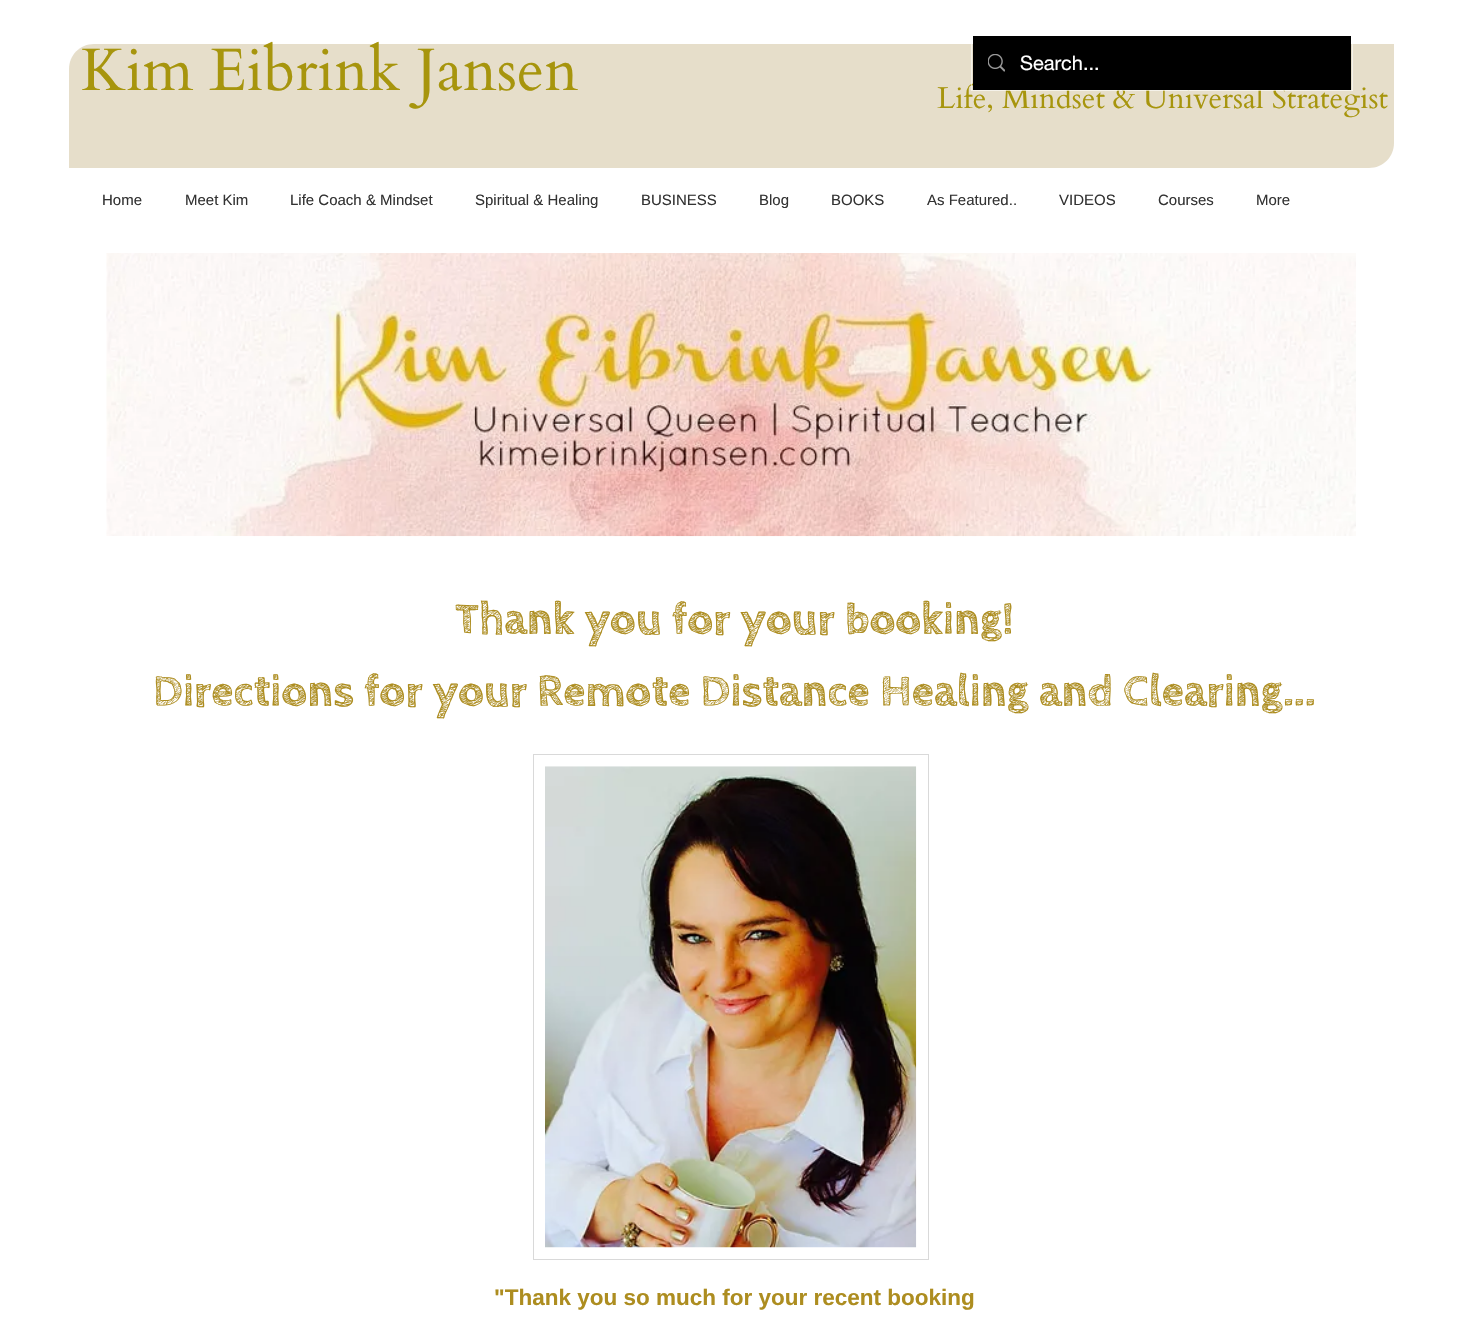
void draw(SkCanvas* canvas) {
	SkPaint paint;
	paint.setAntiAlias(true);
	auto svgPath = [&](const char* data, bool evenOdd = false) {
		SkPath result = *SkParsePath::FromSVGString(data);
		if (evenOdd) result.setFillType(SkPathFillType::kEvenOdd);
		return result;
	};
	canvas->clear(0xffffffff);
	paint.setColor(0xffe6deca);
	canvas->drawPath(svgPath("M94 44H1394V143C1394 157 1383 168 1369 168H69V69C69 55 80 44 94 44Z"), paint);
	SkFont f1(fontMgr->matchFamilyStyle("Cardo", SkFontStyle::Normal()), 60);
	f1.setSubpixel(true);
	paint.setColor(0xffa7950d);
	canvas->drawString("Kim Eibrink Jansen", 81, 90, f1, paint);
	SkFont f2(fontMgr->matchFamilyStyle("Cardo", SkFontStyle::Normal()), 30);
	f2.setSubpixel(true);
	canvas->drawString("Life, Mindset & Universal Strategist", 937, 108, f2, paint);
	paint.setStroke(true);
	paint.setStrokeWidth(1);
	paint.setColor(0x99ffffff);
	canvas->drawRect(SkRect::MakeXYWH(971.5, 35.5, 381, 55), paint);
	paint.setStroke(false);
	paint.setColor(0xff000000);
	canvas->drawRect(SkRect::MakeXYWH(973, 36, 378, 54), paint);
	canvas->drawImageRect(SkImages::DeferredFromEncodedData(SkData::MakeFromFileName("img1.png")), SkRect::MakeXYWH(988, 54, 17, 18), SkSamplingOptions());
	SkFont f3(fontMgr->matchFamilyStyle("helvetica neue", SkFontStyle::Normal()), 20);
	f3.setSubpixel(true);
	paint.setColor(0xffffffff);
	canvas->drawString("Search...", 1020, 70, f3, paint);
	SkFont f4(fontMgr->matchFamilyStyle("Liberation Sans", SkFontStyle::Normal()), 15);
	f4.setSubpixel(true);
	paint.setColor(0xff333333);
	canvas->drawString("Home", 102, 205, f4, paint);
	canvas->drawString("Meet Kim", 185, 205, f4, paint);
	canvas->drawString("Life Coach & Mindset", 290, 205, f4, paint);
	canvas->drawString("Spiritual & Healing", 475, 205, f4, paint);
	canvas->drawString("BUSINESS", 641, 205, f4, paint);
	canvas->drawString("Blog", 759, 205, f4, paint);
	canvas->drawString("BOOKS", 831, 205, f4, paint);
	canvas->drawString("As Featured..", 927, 205, f4, paint);
	canvas->drawString("VIDEOS", 1059, 205, f4, paint);
	canvas->drawString("Courses", 1158, 205, f4, paint);
	canvas->drawString("More", 1256, 205, f4, paint);
	canvas->drawImageRect(SkImages::DeferredFromEncodedData(SkData::MakeFromFileName("img2.png")), SkRect::MakeXYWH(106, 253, 1250, 284), SkSamplingOptions());
	SkFont f5(fontMgr->matchFamilyStyle("Cabin Sketch", SkFontStyle::Bold()), 45);
	f5.setSubpixel(true);
	paint.setColor(0xffad8d20);
	canvas->drawString("Thank you for your booking!", 455, 633, f5, paint);
	canvas->drawString("Directions for your Remote Distance Healing and Clearing...", 153, 705, f5, paint);
	paint.setStroke(true);
	paint.setColor(0xffd9d9d9);
	canvas->drawRect(SkRect::MakeXYWH(533.5, 754.5, 395, 505), paint);
	canvas->drawImageRect(SkImages::DeferredFromEncodedData(SkData::MakeFromFileName("img3.png")), SkRect::MakeXYWH(545, 766, 372, 482), SkSamplingOptions());
	SkFont f6(fontMgr->matchFamilyStyle("Liberation Sans", SkFontStyle::Bold()), 22.5);
	f6.setSubpixel(true);
	paint.setStroke(false);
	paint.setColor(0xffad8d20);
	canvas->drawString("\"Thank you so much for your recent booking", 494, 1305, f6, paint);
}
